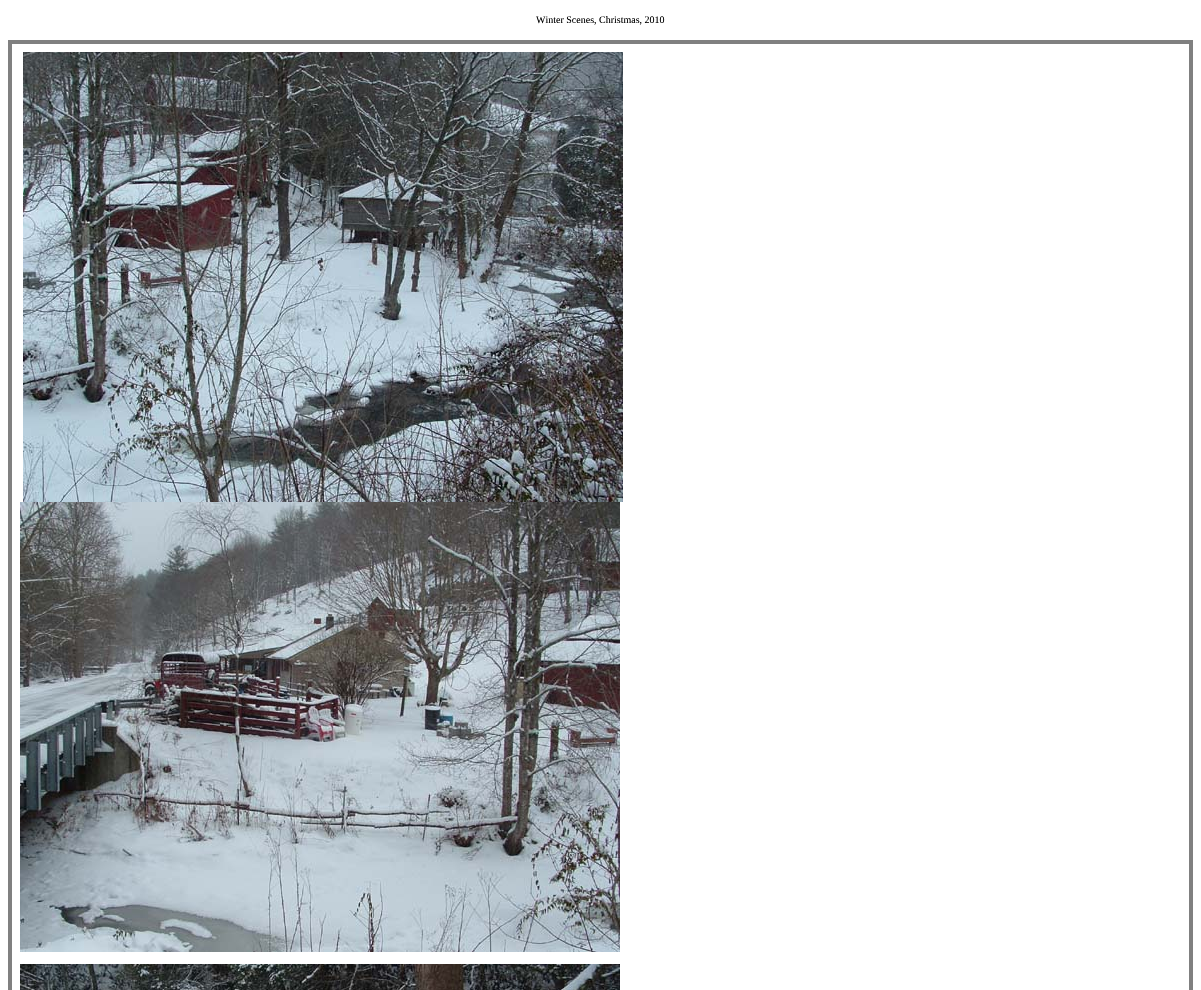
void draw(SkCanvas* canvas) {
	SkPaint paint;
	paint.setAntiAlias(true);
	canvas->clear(0xffffffff);
	SkFont f1(fontMgr->matchFamilyStyle("Liberation Serif", SkFontStyle::Normal()), 10);
	f1.setSubpixel(true);
	paint.setColor(0xff000000);
	canvas->drawString("Winter Scenes, Christmas, 2010", 536, 23, f1, paint);
	paint.setStroke(true);
	paint.setStrokeWidth(4);
	paint.setColor(0xff808080);
	canvas->drawRect(SkRect::MakeXYWH(10, 42, 1181, 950), paint);
	canvas->drawImageRect(SkImages::DeferredFromEncodedData(SkData::MakeFromFileName("img1.png")), SkRect::MakeXYWH(23, 52, 600, 450), SkSamplingOptions());
	canvas->drawImageRect(SkImages::DeferredFromEncodedData(SkData::MakeFromFileName("img2.png")), SkRect::MakeXYWH(20, 502, 600, 450), SkSamplingOptions());
	canvas->drawImageRect(SkImages::DeferredFromEncodedData(SkData::MakeFromFileName("img3.png")), SkRect::MakeXYWH(20, 964, 600, 26), SkSamplingOptions());
}
